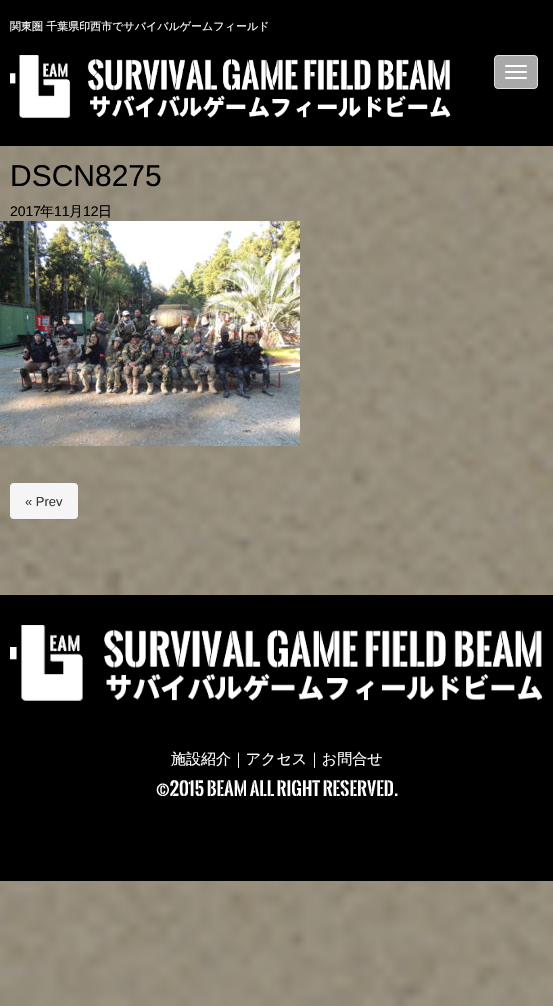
void draw(SkCanvas* canvas) {
	SkPaint paint;
	paint.setAntiAlias(true);
	canvas->clear(0xffffffff);
	canvas->drawImageRect(SkImages::DeferredFromEncodedData(SkData::MakeFromFileName("img1.png")), SkRect::MakeXYWH(0, 881, 553, 125), SkSamplingOptions());
	paint.setColor(0xff000000);
	canvas->drawRect(SkRect::MakeXYWH(0, 0, 553, 146), paint);
	SkFont f1(fontMgr->matchFamilyStyle("WenQuanYi Zen Hei", SkFontStyle(500, SkFontStyle::kNormal_Width, SkFontStyle::kUpright_Slant)), 11);
	f1.setSubpixel(true);
	paint.setColor(0xffffffff);
	canvas->drawString("関東圏 千葉県印西市でサバイバルゲームフィールド", 10, 30, f1, paint);
	canvas->drawImageRect(SkImages::DeferredFromEncodedData(SkData::MakeFromFileName("img2.png")), SkRect::MakeXYWH(10, 55, 441, 63), SkSamplingOptions());
	paint.setColor(0xffa8a8a8);
	canvas->drawRoundRect(SkRect::MakeXYWH(494.5, 55.5, 43, 33), 3.5, 3.5, paint);
	paint.setStroke(true);
	paint.setStrokeWidth(1);
	paint.setColor(0xffdedede);
	canvas->drawRoundRect(SkRect::MakeXYWH(494.5, 55.5, 43, 33), 3.5, 3.5, paint);
	paint.setStroke(false);
	paint.setColor(0xffffffff);
	canvas->drawRoundRect(SkRect::MakeXYWH(505, 65, 22, 2), 1, 1, paint);
	canvas->drawRoundRect(SkRect::MakeXYWH(505, 71, 22, 2), 1, 1, paint);
	canvas->drawRoundRect(SkRect::MakeXYWH(505, 77, 22, 2), 1, 1, paint);
	canvas->drawImageRect(SkImages::DeferredFromEncodedData(SkData::MakeFromFileName("img3.png")), SkRect::MakeXYWH(0, 146, 553, 449), SkSamplingOptions());
	SkFont f2(fontMgr->matchFamilyStyle("Liberation Sans", SkFontStyle::Normal()), 30);
	f2.setSubpixel(true);
	paint.setColor(0xff000000);
	canvas->drawString("DSCN8275", 10, 186, f2, paint);
	SkFont f3(fontMgr->matchFamilyStyle("Liberation Sans", SkFontStyle::Normal()), 14);
	f3.setSubpixel(true);
	canvas->drawString("2017", 10, 216, f3, paint);
	SkFont f4(fontMgr->matchFamilyStyle("WenQuanYi Zen Hei", SkFontStyle(500, SkFontStyle::kNormal_Width, SkFontStyle::kUpright_Slant)), 14);
	f4.setSubpixel(true);
	canvas->drawString("年", 40, 216, f4, paint);
	canvas->drawString("11", 54, 216, f3, paint);
	canvas->drawString("月", 69, 216, f4, paint);
	canvas->drawString("12", 83, 216, f3, paint);
	canvas->drawString("日", 98, 216, f4, paint);
	canvas->drawImageRect(SkImages::DeferredFromEncodedData(SkData::MakeFromFileName("img4.png")), SkRect::MakeXYWH(0, 221, 300, 225), SkSamplingOptions());
	paint.setColor(0x1a323232);
	paint.setMaskFilter(SkMaskFilter::MakeBlur(kNormal_SkBlurStyle, 1));
	canvas->drawRoundRect(SkRect::MakeXYWH(10, 484, 68, 36), 4, 4, paint);
	paint.setMaskFilter(nullptr);
	paint.setColor(0xfff5f5f5);
	canvas->drawRoundRect(SkRect::MakeXYWH(10, 483, 68, 36), 4, 4, paint);
	SkFont f5(fontMgr->matchFamilyStyle("Liberation Sans", SkFontStyle::Normal()), 13);
	f5.setSubpixel(true);
	paint.setColor(0xff3c3c3c);
	canvas->drawString("« Prev", 25, 506, f5, paint);
	paint.setColor(0xff000000);
	canvas->drawRect(SkRect::MakeXYWH(0, 595, 553, 286), paint);
	canvas->drawImageRect(SkImages::DeferredFromEncodedData(SkData::MakeFromFileName("img5.png")), SkRect::MakeXYWH(10, 625, 533, 76), SkSamplingOptions());
	SkFont f6(fontMgr->matchFamilyStyle("WenQuanYi Zen Hei", SkFontStyle(500, SkFontStyle::kNormal_Width, SkFontStyle::kUpright_Slant)), 15);
	f6.setSubpixel(true);
	paint.setColor(0xffffffff);
	canvas->drawString("施設紹介｜アクセス｜お問合せ", 171, 764, f6, paint);
	canvas->drawImageRect(SkImages::DeferredFromEncodedData(SkData::MakeFromFileName("img6.png")), SkRect::MakeXYWH(156, 780, 242, 16), SkSamplingOptions());
}
